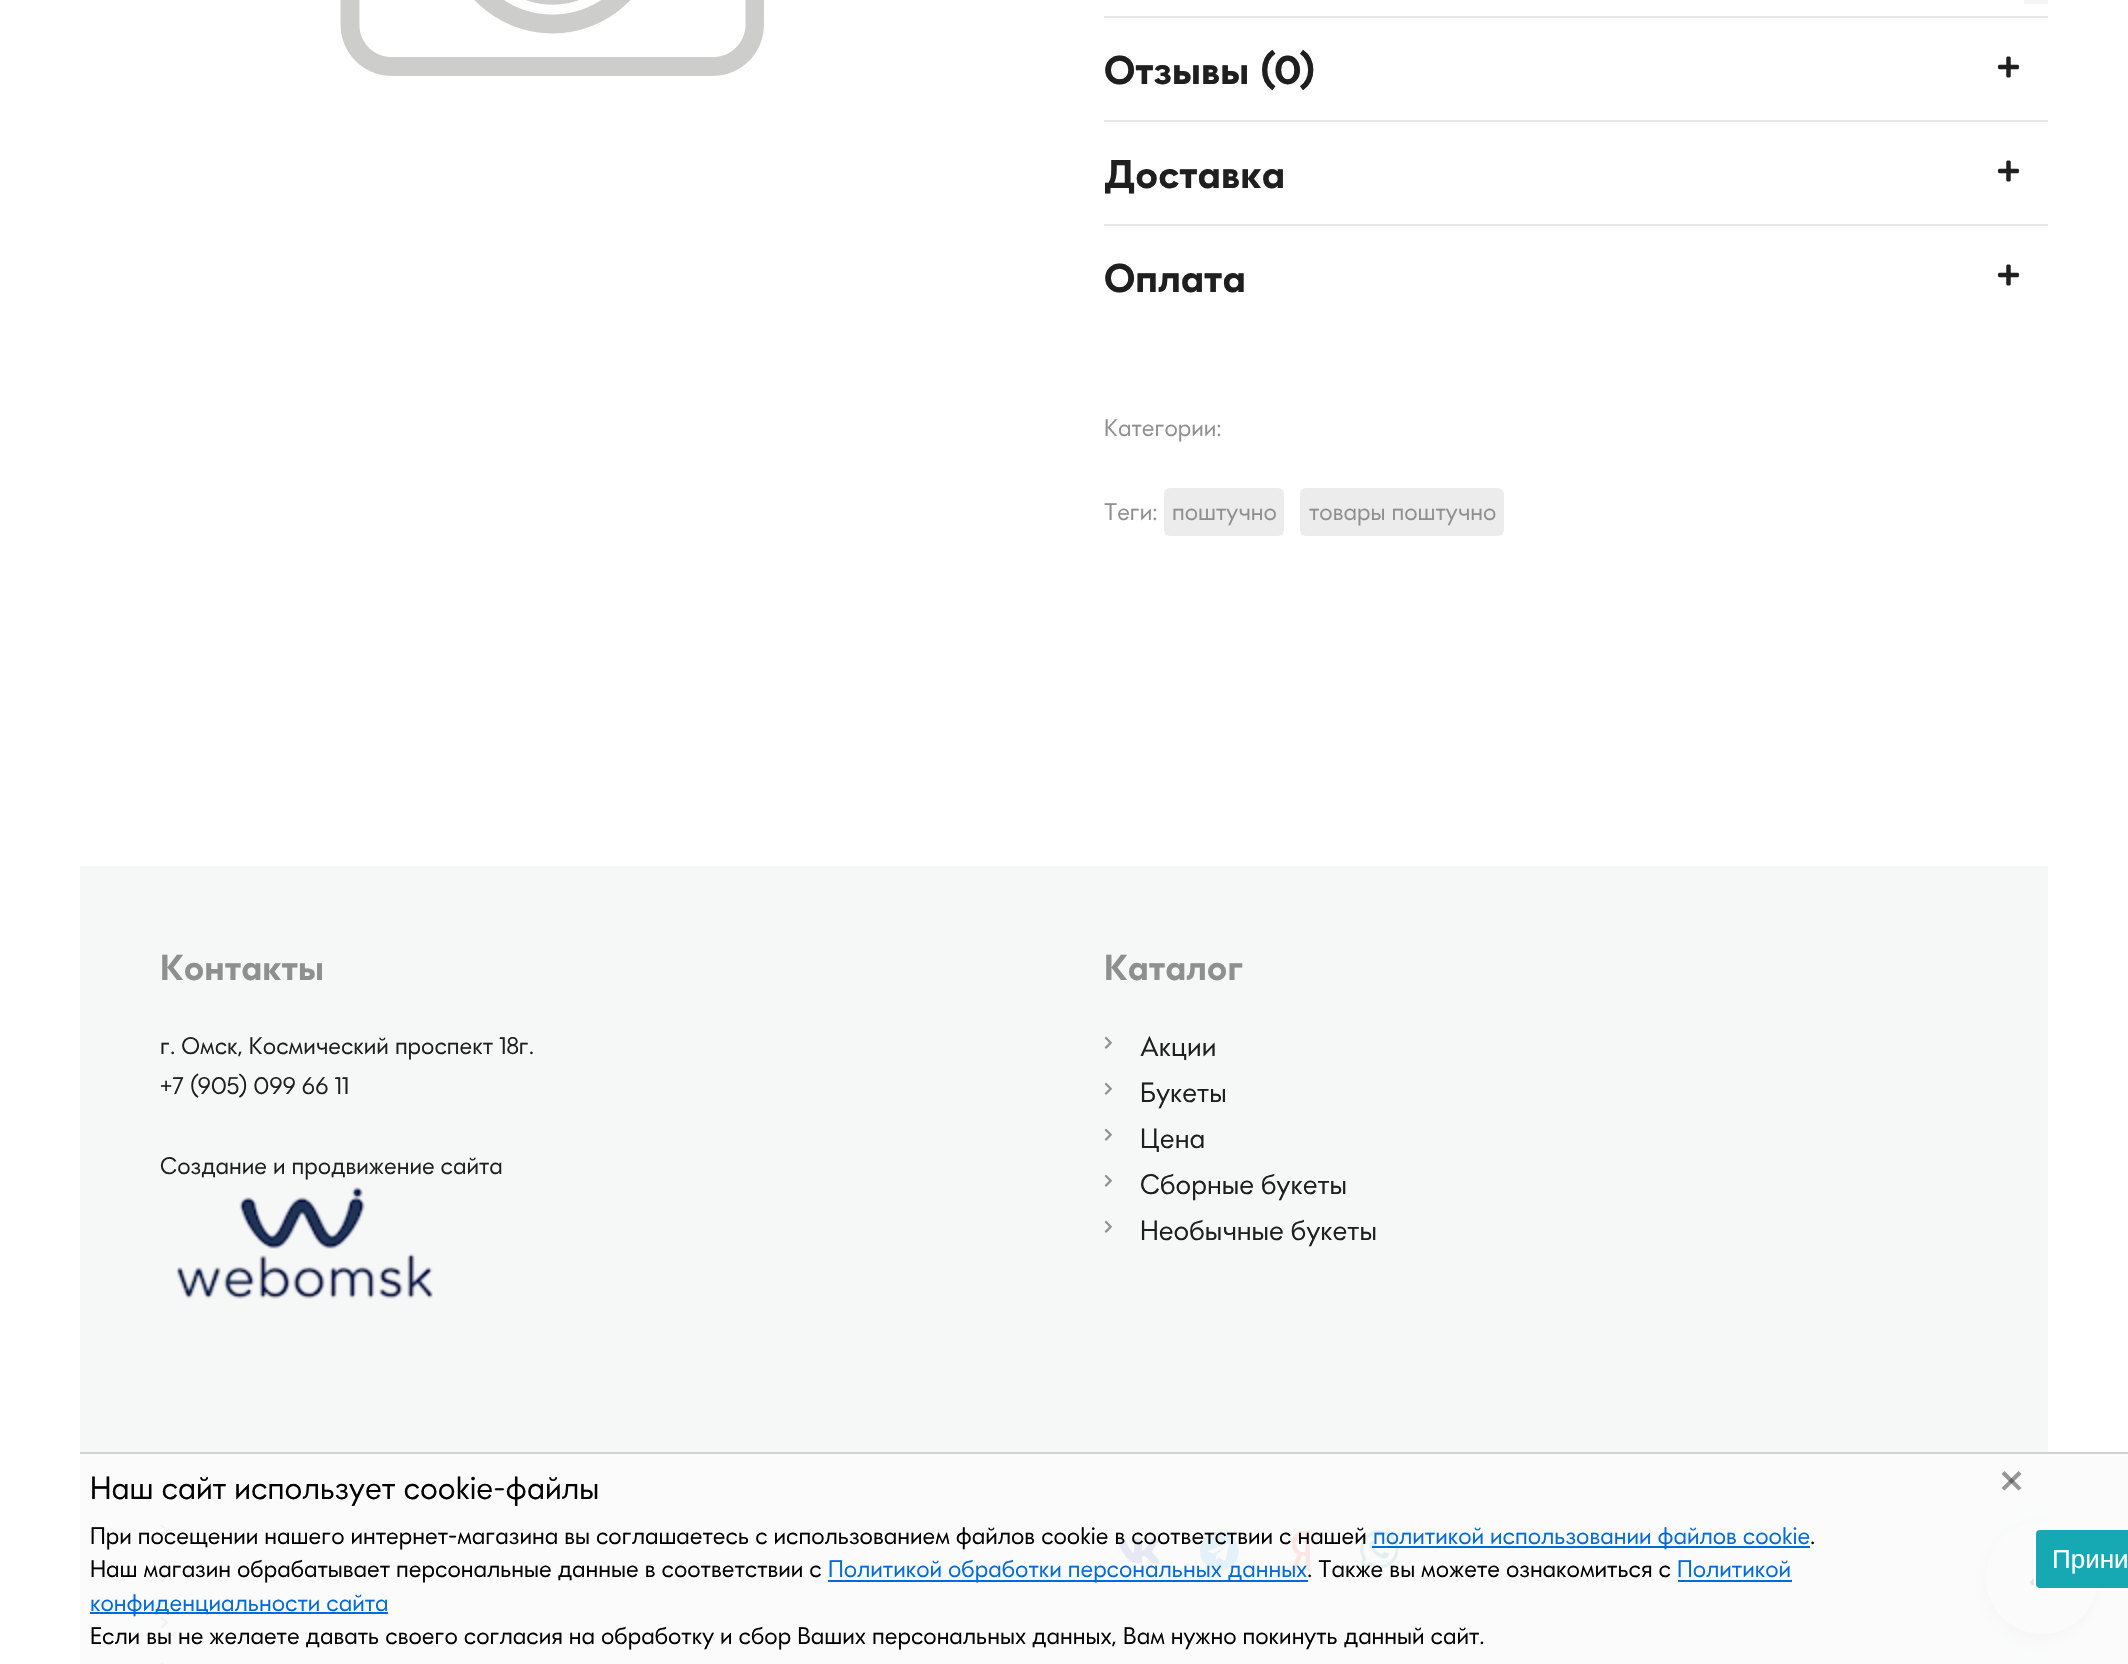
void draw(SkCanvas* canvas) {
	SkPaint paint;
	paint.setAntiAlias(true);
	auto svgPath = [&](const char* data, bool evenOdd = false) {
		SkPath result = *SkParsePath::FromSVGString(data);
		if (evenOdd) result.setFillType(SkPathFillType::kEvenOdd);
		return result;
	};
	canvas->clear(0xffffffff);
	paint.setColor(0xfff5f5f5);
	canvas->drawRect(SkRect::MakeXYWH(2024, 0, 24, 4), paint);
	canvas->drawImageRect(SkImages::DeferredFromEncodedData(SkData::MakeFromFileName("img1.png")), SkRect::MakeXYWH(340, 0, 424, 76), SkSamplingOptions());
	paint.setColor(0xffe6e6e6);
	canvas->drawRect(SkRect::MakeXYWH(1104, 16, 944, 2), paint);
	SkFont f1(fontMgr->matchFamilyStyle("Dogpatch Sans", SkFontStyle::Bold()), 40);
	f1.setSubpixel(true);
	paint.setColor(0xff1f1f1f);
	canvas->drawString("Отзывы (0)", 1104, 84, f1, paint);
	canvas->drawImageRect(SkImages::DeferredFromEncodedData(SkData::MakeFromFileName("img2.png")), SkRect::MakeXYWH(1998, 56, 21, 22), SkSamplingOptions());
	paint.setColor(0xffe6e6e6);
	canvas->drawRect(SkRect::MakeXYWH(1104, 120, 944, 2), paint);
	paint.setColor(0xff1f1f1f);
	canvas->drawString("Доставка", 1104, 188, f1, paint);
	canvas->drawImageRect(SkImages::DeferredFromEncodedData(SkData::MakeFromFileName("img2.png")), SkRect::MakeXYWH(1998, 160, 21, 22), SkSamplingOptions());
	paint.setColor(0xffe6e6e6);
	canvas->drawRect(SkRect::MakeXYWH(1104, 224, 944, 2), paint);
	paint.setColor(0xff1f1f1f);
	canvas->drawString("Оплата", 1104, 292, f1, paint);
	canvas->drawImageRect(SkImages::DeferredFromEncodedData(SkData::MakeFromFileName("img2.png")), SkRect::MakeXYWH(1998, 264, 21, 22), SkSamplingOptions());
	SkFont f2(fontMgr->matchFamilyStyle("Dogpatch Sans", SkFontStyle::Normal()), 24);
	f2.setSubpixel(true);
	paint.setColor(0xff8f8f8f);
	canvas->drawString("Категории:", 1104, 436, f2, paint);
	canvas->drawString("Теги:", 1104, 520, f2, paint);
	paint.setColor(0xffececec);
	canvas->drawRoundRect(SkRect::MakeXYWH(1164, 488, 120, 48), 6, 6, paint);
	paint.setColor(0xff8f8f8f);
	canvas->drawString("поштучно", 1172, 520, f2, paint);
	paint.setColor(0xffececec);
	canvas->drawRoundRect(SkRect::MakeXYWH(1300, 488, 204, 48), 6, 6, paint);
	paint.setColor(0xff8f8f8f);
	canvas->drawString("товары поштучно", 1309, 520, f2, paint);
	paint.setColor(0xfff6f7f7);
	canvas->drawRect(SkRect::MakeXYWH(80, 866, 1968, 798), paint);
	SkFont f3(fontMgr->matchFamilyStyle("Dogpatch Sans", SkFontStyle::Bold()), 36);
	f3.setSubpixel(true);
	paint.setColor(0xff8f8f8f);
	canvas->drawString("Контакты", 160, 980, f3, paint);
	paint.setColor(0xff1f1f1f);
	canvas->drawString("г. Омск, Космический проспект 18г.", 160, 1054, f2, paint);
	canvas->drawString("+7 (905) 099 66 11", 160, 1094, f2, paint);
	canvas->drawString("Создание и продвижение сайта", 160, 1174, f2, paint);
	canvas->drawImageRect(SkImages::DeferredFromEncodedData(SkData::MakeFromFileName("img3.png")), SkRect::MakeXYWH(176, 1187, 257, 112), SkSamplingOptions());
	paint.setColor(0xff8f8f8f);
	canvas->drawString("Каталог", 1104, 980, f3, paint);
	canvas->drawImageRect(SkImages::DeferredFromEncodedData(SkData::MakeFromFileName("img4.png")), SkRect::MakeXYWH(1104, 1036, 8, 13), SkSamplingOptions());
	SkFont f4(fontMgr->matchFamilyStyle("Dogpatch Sans", SkFontStyle::Normal()), 28);
	f4.setSubpixel(true);
	paint.setColor(0xff1f1f1f);
	canvas->drawString("Акции", 1140, 1056, f4, paint);
	canvas->drawImageRect(SkImages::DeferredFromEncodedData(SkData::MakeFromFileName("img4.png")), SkRect::MakeXYWH(1104, 1082, 8, 13), SkSamplingOptions());
	canvas->drawString("Букеты", 1140, 1102, f4, paint);
	canvas->drawImageRect(SkImages::DeferredFromEncodedData(SkData::MakeFromFileName("img4.png")), SkRect::MakeXYWH(1104, 1128, 8, 13), SkSamplingOptions());
	canvas->drawString("Цена", 1140, 1148, f4, paint);
	canvas->drawImageRect(SkImages::DeferredFromEncodedData(SkData::MakeFromFileName("img4.png")), SkRect::MakeXYWH(1104, 1174, 8, 13), SkSamplingOptions());
	canvas->drawString("Сборные букеты", 1140, 1194, f4, paint);
	canvas->drawImageRect(SkImages::DeferredFromEncodedData(SkData::MakeFromFileName("img4.png")), SkRect::MakeXYWH(1104, 1220, 8, 13), SkSamplingOptions());
	canvas->drawString("Необычные букеты", 1140, 1240, f4, paint);
	canvas->drawImageRect(SkImages::DeferredFromEncodedData(SkData::MakeFromFileName("img4.png")), SkRect::MakeXYWH(160, 1524, 8, 13), SkSamplingOptions());
	canvas->drawImageRect(SkImages::DeferredFromEncodedData(SkData::MakeFromFileName("img4.png")), SkRect::MakeXYWH(160, 1570, 8, 13), SkSamplingOptions());
	canvas->drawImageRect(SkImages::DeferredFromEncodedData(SkData::MakeFromFileName("img4.png")), SkRect::MakeXYWH(160, 1616, 8, 13), SkSamplingOptions());
	canvas->drawImageRect(SkImages::DeferredFromEncodedData(SkData::MakeFromFileName("img5.png")), SkRect::MakeXYWH(160, 1662, 4, 2), SkSamplingOptions());
	canvas->drawImageRect(SkImages::DeferredFromEncodedData(SkData::MakeFromFileName("img6.png")), SkRect::MakeXYWH(1117, 1538, 43, 26), SkSamplingOptions());
	canvas->drawImageRect(SkImages::DeferredFromEncodedData(SkData::MakeFromFileName("img7.png")), SkRect::MakeXYWH(1200, 1531, 39, 40), SkSamplingOptions());
	canvas->drawImageRect(SkImages::DeferredFromEncodedData(SkData::MakeFromFileName("img8.png")), SkRect::MakeXYWH(1290, 1531, 20, 40), SkSamplingOptions());
	canvas->drawImageRect(SkImages::DeferredFromEncodedData(SkData::MakeFromFileName("img9.png")), SkRect::MakeXYWH(1360, 1530, 39, 39), SkSamplingOptions());
	paint.setColor(0x33000000);
	paint.setMaskFilter(SkMaskFilter::MakeBlur(kNormal_SkBlurStyle, 6));
	canvas->drawRoundRect(SkRect::MakeXYWH(1986, 1528, 112, 112), 56, 56, paint);
	paint.setMaskFilter(nullptr);
	paint.setColor(0xffffffff);
	canvas->drawCircle(2042, 1578, 56, paint);
	canvas->drawImageRect(SkImages::DeferredFromEncodedData(SkData::MakeFromFileName("img10.png")), SkRect::MakeXYWH(2030, 1578, 5, 8), SkSamplingOptions());
	paint.setColor(0xe6fbfbfb);
	canvas->drawRect(SkRect::MakeXYWH(80, 1454, 2048, 210), paint);
	paint.setColor(0xffd2d2d2);
	canvas->drawRect(SkRect::MakeXYWH(80, 1452, 2048, 2), paint);
	SkFont f5(fontMgr->matchFamilyStyle("Dogpatch Sans", SkFontStyle::Normal()), 32);
	f5.setSubpixel(true);
	paint.setColor(0xff000000);
	canvas->drawString("Наш сайт использует cookie-файлы", 90, 1499, f5, paint);
	paint.setColor(0xff979797);
	canvas->drawPath(svgPath("M2004.5 1471L2021.5 1488L2018.5 1490.5L2001.5 1474Z"), paint);
	paint.setColor(0x80333333);
	canvas->drawPath(svgPath("M2001.5 1488L2018.5 1471L2021.5 1474L2004.5 1490.5Z"), paint);
	paint.setColor(0xff000000);
	canvas->drawString("При посещении нашего интернет-магазина вы соглашаетесь с использованием файлов cookie в соответствии с нашей", 90, 1544, f2, paint);
	paint.setColor(0xff006bd8);
	canvas->drawRect(SkRect::MakeXYWH(1372, 1546, 438, 2), paint);
	canvas->drawString("политикой использовании файлов cookie", 1373, 1544, f2, paint);
	paint.setColor(0xff000000);
	canvas->drawString(".", 1810, 1544, f2, paint);
	canvas->drawString("Наш магазин обрабатывает персональные данные в соответствии с", 90, 1577, f2, paint);
	paint.setColor(0xff006bd8);
	canvas->drawRect(SkRect::MakeXYWH(828, 1580, 480, 2), paint);
	canvas->drawString("Политикой обработки персональных данных", 828, 1577, f2, paint);
	paint.setColor(0xff000000);
	canvas->drawString(". Также вы можете ознакомиться с", 1307, 1577, f2, paint);
	paint.setColor(0xff006bd8);
	canvas->drawString("Политикой", 1677, 1577, f2, paint);
	canvas->drawRect(SkRect::MakeXYWH(1678, 1580, 114, 2), paint);
	canvas->drawRect(SkRect::MakeXYWH(90, 1612, 298, 2), paint);
	canvas->drawString("конфиденциальности сайта", 90, 1611, f2, paint);
	paint.setColor(0xff000000);
	canvas->drawString("Если вы не желаете давать своего согласия на обработку и сбор Ваших персональных данных, Вам нужно покинуть данный сайт.", 90, 1644, f2, paint);
	paint.setColor(0xff16a9b3);
	canvas->drawRoundRect(SkRect::MakeXYWH(2035, 1529, 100, 60), 5, 5, paint);
	paint.setStroke(true);
	paint.setStrokeWidth(2);
	paint.setColor(0xffffffff);
	canvas->drawRoundRect(SkRect::MakeXYWH(2035, 1529, 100, 60), 5, 5, paint);
	SkFont f6(fontMgr->matchFamilyStyle("Liberation Sans", SkFontStyle::Normal()), 26);
	f6.setSubpixel(true);
	paint.setStroke(false);
	canvas->drawString("Прини", 2052, 1568, f6, paint);
}
